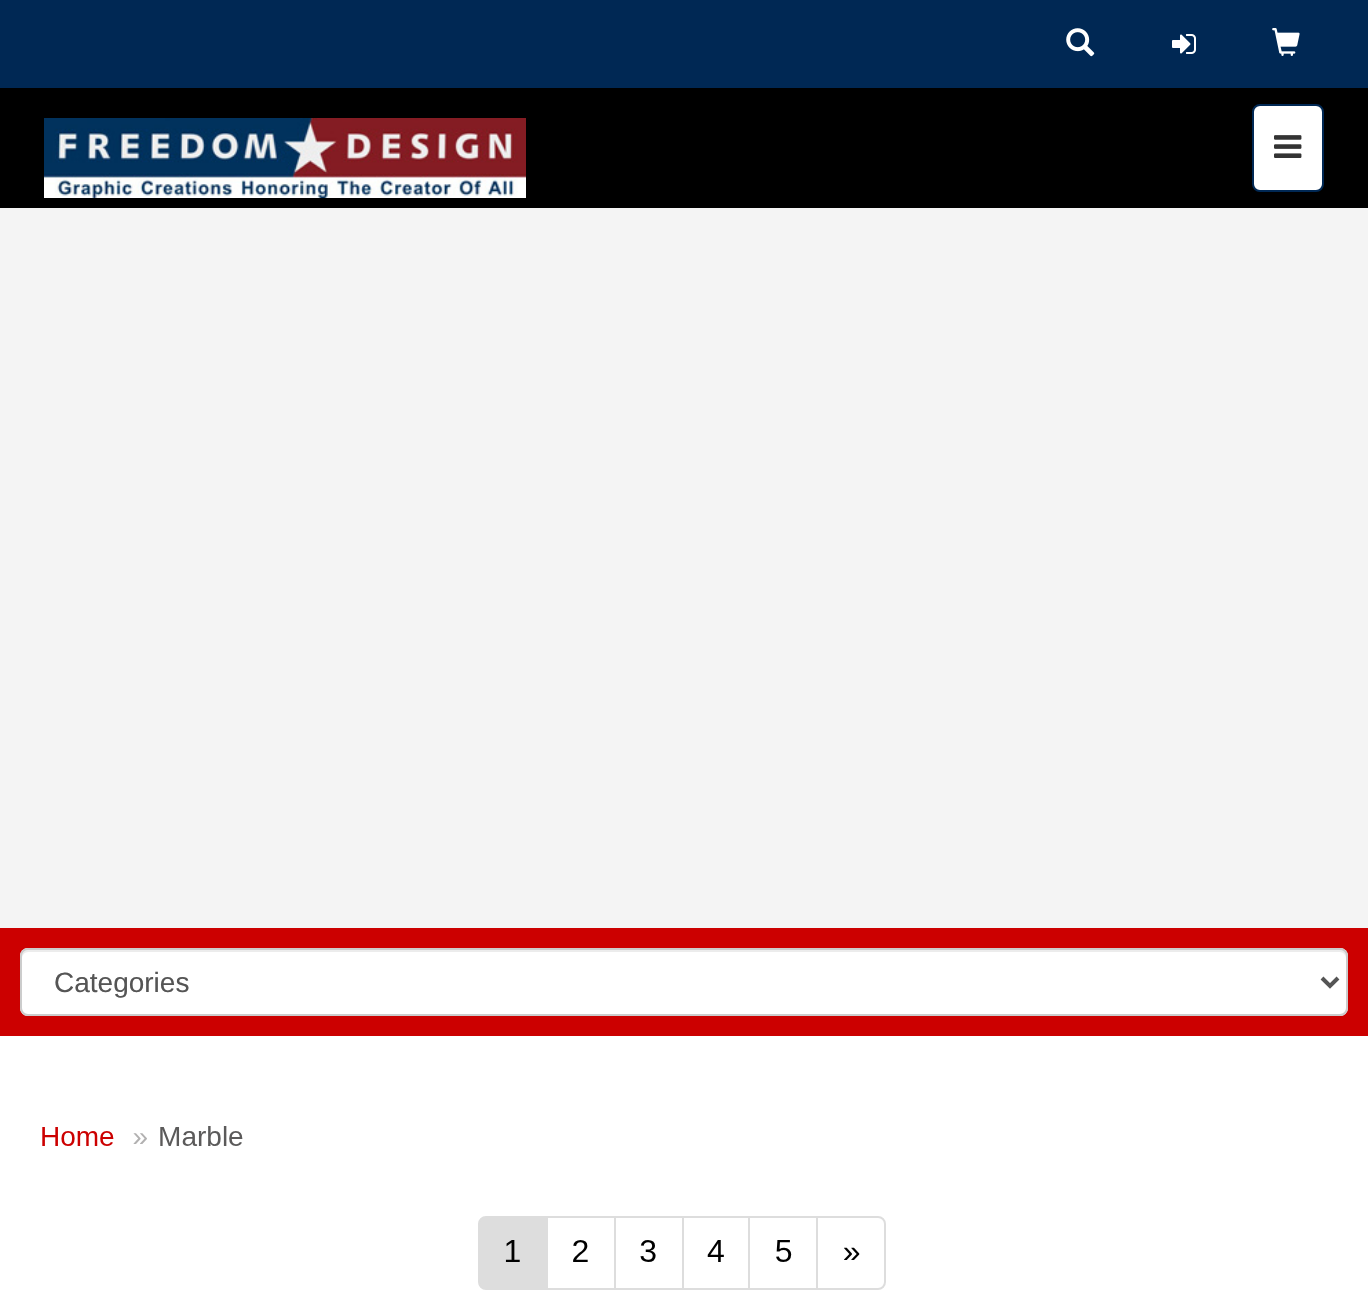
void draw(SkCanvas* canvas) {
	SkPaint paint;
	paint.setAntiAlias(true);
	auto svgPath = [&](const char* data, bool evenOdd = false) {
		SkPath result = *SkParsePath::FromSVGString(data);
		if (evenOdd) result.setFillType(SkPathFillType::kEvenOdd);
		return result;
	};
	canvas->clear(0xfff4f4f4);
	paint.setColor(0xff002854);
	canvas->drawRect(SkRect::MakeXYWH(0, 0, 1368, 88), paint);
	canvas->drawImageRect(SkImages::DeferredFromEncodedData(SkData::MakeFromFileName("img1.png")), SkRect::MakeXYWH(1066, 28, 29, 29), SkSamplingOptions());
	canvas->drawImageRect(SkImages::DeferredFromEncodedData(SkData::MakeFromFileName("img2.png")), SkRect::MakeXYWH(1172, 34, 24, 20), SkSamplingOptions());
	canvas->drawImageRect(SkImages::DeferredFromEncodedData(SkData::MakeFromFileName("img3.png")), SkRect::MakeXYWH(1272, 28, 28, 28), SkSamplingOptions());
	paint.setColor(0xff000000);
	canvas->drawRect(SkRect::MakeXYWH(0, 88, 1368, 120), paint);
	canvas->drawImageRect(SkImages::DeferredFromEncodedData(SkData::MakeFromFileName("img4.png")), SkRect::MakeXYWH(44, 118, 482, 80), SkSamplingOptions());
	paint.setColor(0xffffffff);
	canvas->drawRoundRect(SkRect::MakeXYWH(1253, 105, 70, 86), 7, 7, paint);
	paint.setStroke(true);
	paint.setStrokeWidth(2);
	paint.setColor(0xff002854);
	canvas->drawRoundRect(SkRect::MakeXYWH(1253, 105, 70, 86), 7, 7, paint);
	canvas->drawImageRect(SkImages::DeferredFromEncodedData(SkData::MakeFromFileName("img5.png")), SkRect::MakeXYWH(1274, 135, 28, 23), SkSamplingOptions());
	paint.setStroke(false);
	paint.setColor(0xffffffff);
	canvas->drawRect(SkRect::MakeXYWH(0, 1036, 1368, 266), paint);
	paint.setColor(0xffcc0000);
	canvas->drawRect(SkRect::MakeXYWH(0, 928, 1368, 108), paint);
	paint.setColor(0xffffffff);
	canvas->drawRoundRect(SkRect::MakeXYWH(20, 948, 1328, 68), 8, 8, paint);
	paint.setColor(0xffececec);
	canvas->drawPath(svgPath("M28 952H1340C1343 952 1346 955 1346 958V956C1346 953 1343 950 1340 950H28C25 950 22 953 22 956V958C22 955 25 952 28 952Z"), paint);
	paint.setStroke(true);
	paint.setColor(0xffcccccc);
	canvas->drawRoundRect(SkRect::MakeXYWH(21, 949, 1326, 66), 7, 7, paint);
	paint.setStrokeWidth(4);
	paint.setColor(0xff555555);
	canvas->drawPath(svgPath("M1322 978L1330 986L1338 978"), paint);
	SkFont f1(fontMgr->matchFamilyStyle("Liberation Sans", SkFontStyle::Normal()), 28);
	f1.setSubpixel(true);
	paint.setStroke(false);
	canvas->drawString("Categories", 54, 992, f1, paint);
	canvas->drawImageRect(SkImages::DeferredFromEncodedData(SkData::MakeFromFileName("img6.png")), SkRect::MakeXYWH(42, 1126, 844, 164), SkSamplingOptions());
}
